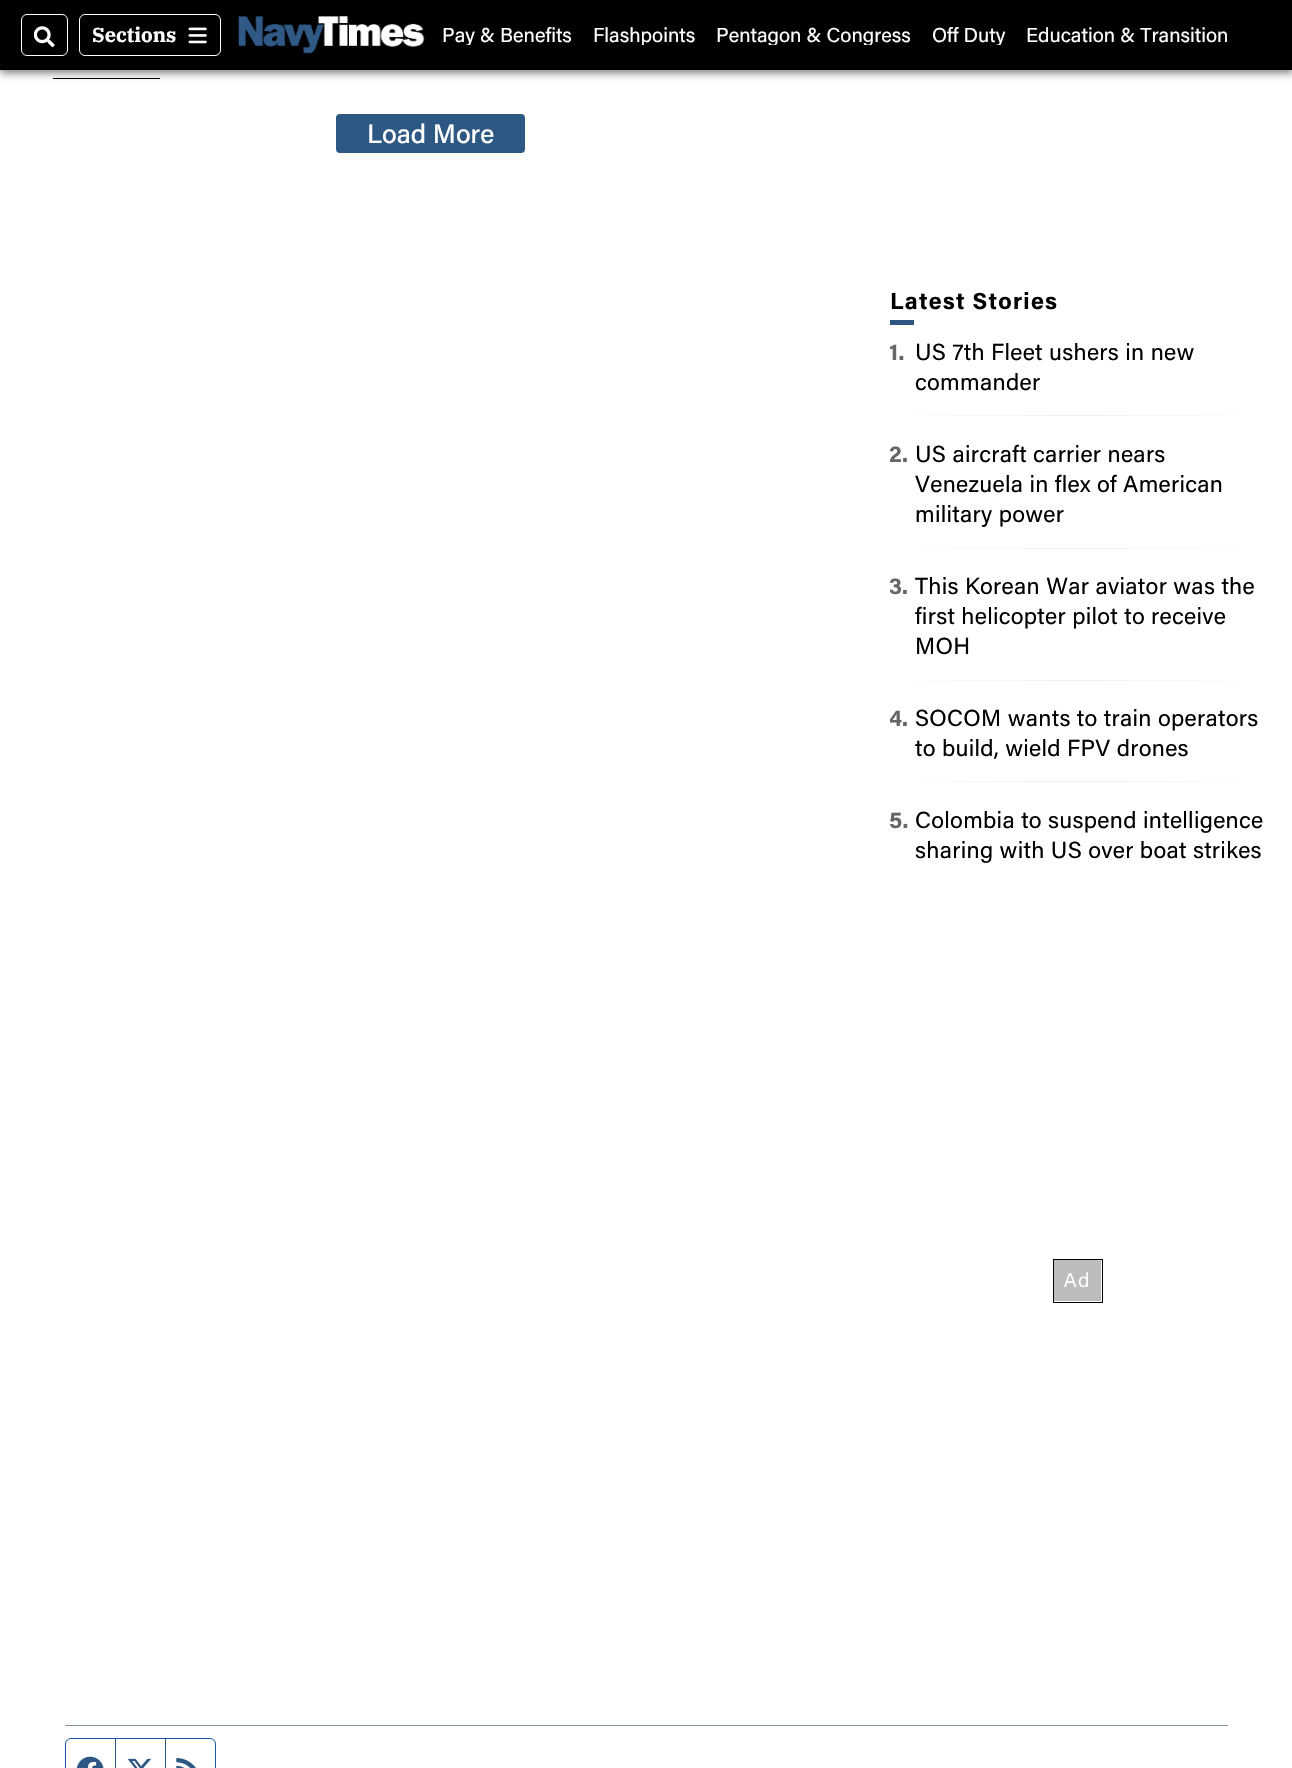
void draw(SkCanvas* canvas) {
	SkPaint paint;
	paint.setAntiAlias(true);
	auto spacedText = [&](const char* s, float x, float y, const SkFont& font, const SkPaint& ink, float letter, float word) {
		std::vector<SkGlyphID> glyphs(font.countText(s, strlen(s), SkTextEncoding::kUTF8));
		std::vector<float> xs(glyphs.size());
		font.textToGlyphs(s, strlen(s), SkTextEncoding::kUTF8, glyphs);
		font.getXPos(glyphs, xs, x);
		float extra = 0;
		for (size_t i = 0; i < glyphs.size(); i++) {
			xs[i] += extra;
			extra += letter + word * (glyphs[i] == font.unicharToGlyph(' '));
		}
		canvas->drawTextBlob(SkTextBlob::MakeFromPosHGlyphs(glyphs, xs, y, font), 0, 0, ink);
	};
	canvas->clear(0xffffffff);
	paint.setColor(0xff000000);
	canvas->drawRect(SkRect::MakeXYWH(53, 78, 107, 1), paint);
	paint.setColor(0x80000000);
	paint.setMaskFilter(SkMaskFilter::MakeBlur(kNormal_SkBlurStyle, 4));
	canvas->drawRect(SkRect::MakeXYWH(0, 3, 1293, 70), paint);
	paint.setMaskFilter(nullptr);
	paint.setColor(0xff000000);
	canvas->drawRect(SkRect::MakeXYWH(0, 0, 1292, 70), paint);
	paint.setStroke(true);
	paint.setStrokeWidth(1);
	paint.setColor(0xffffffff);
	canvas->drawRoundRect(SkRect::MakeXYWH(21.5, 14.5, 46, 41), 5.5, 5.5, paint);
	canvas->drawImageRect(SkImages::DeferredFromEncodedData(SkData::MakeFromFileName("img1.png")), SkRect::MakeXYWH(34, 26, 21, 22), SkSamplingOptions());
	canvas->drawRoundRect(SkRect::MakeXYWH(79.5, 14.5, 141, 41), 5.5, 5.5, paint);
	SkFont f1(fontMgr->matchFamilyStyle("IBM Plex Serif", SkFontStyle::Bold()), 20.1);
	f1.setSubpixel(true);
	paint.setStroke(false);
	canvas->drawString("Sections", 92, 42, f1, paint);
	canvas->drawImageRect(SkImages::DeferredFromEncodedData(SkData::MakeFromFileName("img2.png")), SkRect::MakeXYWH(188, 27, 19, 17), SkSamplingOptions());
	canvas->drawImageRect(SkImages::DeferredFromEncodedData(SkData::MakeFromFileName("img3.png")), SkRect::MakeXYWH(238, 16, 187, 38), SkSamplingOptions());
	canvas->save();
	canvas->clipRect(SkRect::MakeXYWH(441, 25, 813, 20));
	SkFont f2(fontMgr->matchFamilyStyle("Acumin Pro", SkFontStyle::Normal()), 20.1);
	f2.setSubpixel(true);
	canvas->drawString("Pay & Benefits", 442, 42, f2, paint);
	canvas->drawString("Flashpoints", 593, 42, f2, paint);
	canvas->drawString("Pentagon & Congress", 716, 42, f2, paint);
	canvas->drawString("Off Duty", 932, 42, f2, paint);
	canvas->restore();
	canvas->drawString("Education & Transition", 1026, 42, f2, paint);
	paint.setColor(0xff2e5884);
	canvas->drawRoundRect(SkRect::MakeXYWH(336, 114, 189, 39), 4, 4, paint);
	SkFont f3(fontMgr->matchFamilyStyle("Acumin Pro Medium", SkFontStyle(500, SkFontStyle::kNormal_Width, SkFontStyle::kUpright_Slant)), 26.5);
	f3.setSubpixel(true);
	paint.setColor(0xffffffff);
	canvas->drawString("Load More", 367, 143, f3, paint);
	SkFont f4(fontMgr->matchFamilyStyle("Acumin Pro", SkFontStyle::Bold()), 23.2);
	f4.setSubpixel(true);
	paint.setColor(0xff000000);
	spacedText("Latest Stories", 890, 309, f4, paint, 1.25, 0);
	paint.setColor(0xff2e5884);
	canvas->drawRect(SkRect::MakeXYWH(890, 320, 24, 5), paint);
	paint.setColor(0xff666666);
	spacedText("1.", 889, 360, f4, paint, 0.3, 0);
	SkFont f5(fontMgr->matchFamilyStyle("Acumin Pro", SkFontStyle::Normal()), 23.2);
	f5.setSubpixel(true);
	paint.setColor(0xff000000);
	spacedText("US 7th Fleet ushers in new", 915, 360, f5, paint, 0.3, 0);
	spacedText("commander", 915, 390, f5, paint, 0.3, 0);
	{
		const SkColor colors[] = {0xffe2e2e2, 0xffffffff};
		const float stops[] = {0, 1};
		SkMatrix m = SkMatrix::Translate(1077, 416).preScale(229, 0.9);
		paint.setShader(SkGradientShader::MakeRadial({0, 0}, 1, colors, stops, 2, SkTileMode::kClamp, 0, &m));
		paint.setAlpha(255);
	}
	canvas->drawRect(SkRect::MakeXYWH(915, 415, 324, 1), paint);
	canvas->save();
	canvas->clipRect(SkRect::MakeXYWH(890, 335, 375, 529));
	paint.setShader(nullptr);
	paint.setColor(0xff666666);
	spacedText("2", 889, 462, f4, paint, 0.3, 0);
	canvas->restore();
	spacedText(".", 902, 462, f4, paint, 0.3, 0);
	paint.setColor(0xff000000);
	spacedText("US aircraft carrier nears", 915, 462, f5, paint, 0.3, 0);
	spacedText("Venezuela in flex of American", 915, 492, f5, paint, 0.3, 0);
	spacedText("military power", 915, 522, f5, paint, 0.3, 0);
	{
		const SkColor colors[] = {0xffe2e2e2, 0xffffffff};
		const float stops[] = {0, 1};
		SkMatrix m = SkMatrix::Translate(1077, 548).preScale(229, 0.9);
		paint.setShader(SkGradientShader::MakeRadial({0, 0}, 1, colors, stops, 2, SkTileMode::kClamp, 0, &m));
		paint.setAlpha(255);
	}
	canvas->drawRect(SkRect::MakeXYWH(915, 548, 324, 1), paint);
	canvas->save();
	canvas->clipRect(SkRect::MakeXYWH(890, 335, 375, 529));
	paint.setShader(nullptr);
	paint.setColor(0xff666666);
	spacedText("3", 889, 594, f4, paint, 0.3, 0);
	canvas->restore();
	spacedText(".", 902, 594, f4, paint, 0.3, 0);
	paint.setColor(0xff000000);
	spacedText("This Korean War aviator was the", 915, 594, f5, paint, 0.3, 0);
	spacedText("first helicopter pilot to receive", 915, 624, f5, paint, 0.3, 0);
	spacedText("MOH", 915, 654, f5, paint, 0.3, 0);
	{
		const SkColor colors[] = {0xffe2e2e2, 0xffffffff};
		const float stops[] = {0, 1};
		SkMatrix m = SkMatrix::Translate(1077, 681).preScale(229, 0.9);
		paint.setShader(SkGradientShader::MakeRadial({0, 0}, 1, colors, stops, 2, SkTileMode::kClamp, 0, &m));
		paint.setAlpha(255);
	}
	canvas->drawRect(SkRect::MakeXYWH(915, 680, 324, 1), paint);
	canvas->save();
	canvas->clipRect(SkRect::MakeXYWH(890, 335, 375, 529));
	paint.setShader(nullptr);
	paint.setColor(0xff666666);
	spacedText("4", 889, 726, f4, paint, 0.3, 0);
	canvas->restore();
	spacedText(".", 902, 726, f4, paint, 0.3, 0);
	paint.setColor(0xff000000);
	spacedText("SOCOM wants to train operators", 915, 726, f5, paint, 0.3, 0);
	spacedText("to build, wield FPV drones", 915, 756, f5, paint, 0.3, 0);
	{
		const SkColor colors[] = {0xffe2e2e2, 0xffffffff};
		const float stops[] = {0, 1};
		SkMatrix m = SkMatrix::Translate(1077, 782).preScale(229, 0.9);
		paint.setShader(SkGradientShader::MakeRadial({0, 0}, 1, colors, stops, 2, SkTileMode::kClamp, 0, &m));
		paint.setAlpha(255);
	}
	canvas->drawRect(SkRect::MakeXYWH(915, 781, 324, 1), paint);
	paint.setShader(nullptr);
	paint.setColor(0xff666666);
	spacedText("5.", 889, 828, f4, paint, 0.3, 0);
	paint.setColor(0xff000000);
	spacedText("Colombia to suspend intelligence", 915, 828, f5, paint, 0.3, 0);
	spacedText("sharing with US over boat strikes", 915, 858, f5, paint, 0.3, 0);
	paint.setColor(0xffbcbcbc);
	canvas->drawRect(SkRect::MakeXYWH(1054, 1260, 47, 41), paint);
	canvas->drawImageRect(SkImages::DeferredFromEncodedData(SkData::MakeFromFileName("img4.png")), SkRect::MakeXYWH(1064, 1272, 24, 16), SkSamplingOptions());
	paint.setStroke(true);
	paint.setColor(0xff000000);
	canvas->drawRect(SkRect::MakeXYWH(1053.5, 1259.5, 49, 43), paint);
	paint.setStroke(false);
	paint.setColor(0xff8593aa);
	canvas->drawRect(SkRect::MakeXYWH(65, 1725, 1163, 1), paint);
	paint.setStroke(true);
	paint.setColor(0xff1458a9);
	canvas->drawRoundRect(SkRect::MakeXYWH(65.5, 1738.5, 150, 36), 5.5, 5.5, paint);
	paint.setStroke(false);
	paint.setColor(0xff2e5884);
	canvas->drawRect(SkRect::MakeXYWH(115, 1739, 1, 29), paint);
	canvas->drawImageRect(SkImages::DeferredFromEncodedData(SkData::MakeFromFileName("img5.png")), SkRect::MakeXYWH(76, 1756, 28, 12), SkSamplingOptions());
	canvas->drawRect(SkRect::MakeXYWH(165, 1739, 1, 29), paint);
	canvas->drawImageRect(SkImages::DeferredFromEncodedData(SkData::MakeFromFileName("img6.png")), SkRect::MakeXYWH(127, 1758, 25, 10), SkSamplingOptions());
	canvas->drawImageRect(SkImages::DeferredFromEncodedData(SkData::MakeFromFileName("img7.png")), SkRect::MakeXYWH(176, 1758, 20, 10), SkSamplingOptions());
}
